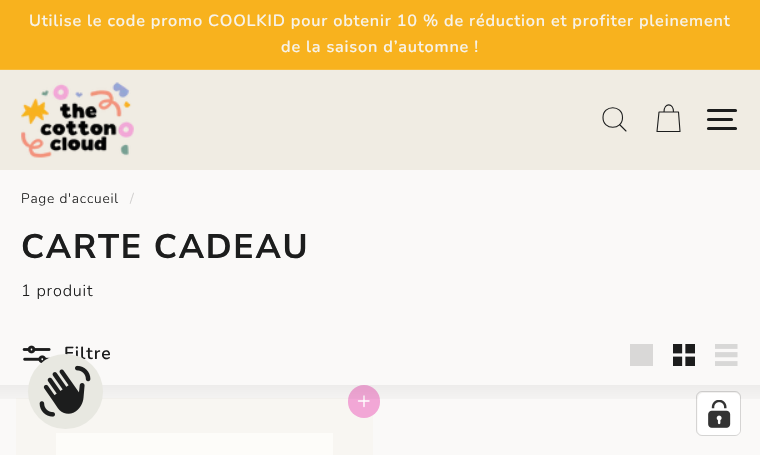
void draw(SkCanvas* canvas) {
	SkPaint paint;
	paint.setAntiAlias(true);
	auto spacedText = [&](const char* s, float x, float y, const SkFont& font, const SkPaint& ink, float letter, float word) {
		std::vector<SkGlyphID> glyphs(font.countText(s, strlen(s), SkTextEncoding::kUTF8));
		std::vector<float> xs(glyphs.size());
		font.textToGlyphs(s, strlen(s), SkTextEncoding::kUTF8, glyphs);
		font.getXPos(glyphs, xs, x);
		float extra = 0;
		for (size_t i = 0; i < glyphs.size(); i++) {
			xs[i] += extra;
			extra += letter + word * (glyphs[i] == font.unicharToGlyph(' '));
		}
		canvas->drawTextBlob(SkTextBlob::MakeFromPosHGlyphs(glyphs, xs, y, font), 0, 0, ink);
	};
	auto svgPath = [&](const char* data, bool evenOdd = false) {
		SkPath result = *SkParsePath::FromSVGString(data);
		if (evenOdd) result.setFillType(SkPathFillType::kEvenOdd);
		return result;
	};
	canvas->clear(0xfffaf9f8);
	paint.setColor(0xfff8f6f2);
	canvas->drawRect(SkRect::MakeXYWH(16, 398, 357, 57), paint);
	paint.setColor(0xfff8b21e);
	canvas->drawRect(SkRect::MakeXYWH(0, 0, 760, 69), paint);
	SkFont f1(fontMgr->matchFamilyStyle("Nunito", SkFontStyle(600, SkFontStyle::kNormal_Width, SkFontStyle::kUpright_Slant)), 16.25);
	f1.setSubpixel(true);
	paint.setColor(0xfff7f3e9);
	spacedText("Utilise le code promo COOLKID pour obtenir 10 % de réduction et profiter pleinement", 29, 26, f1, paint, 0.8, 0);
	spacedText("de la saison d’automne !", 281, 52, f1, paint, 0.8, 0);
	paint.setColor(0xfff8bc3c);
	canvas->drawRect(SkRect::MakeXYWH(0, 69, 760, 1), paint);
	paint.setColor(0xfff0ece3);
	canvas->drawRect(SkRect::MakeXYWH(0, 70, 760, 100), paint);
	canvas->drawImageRect(SkImages::DeferredFromEncodedData(SkData::MakeFromFileName("img1.png")), SkRect::MakeXYWH(21, 82, 113, 76), SkSamplingOptions());
	paint.setStroke(true);
	paint.setStrokeWidth(1.1);
	paint.setStrokeCap(SkPaint::kRound_Cap);
	paint.setStrokeJoin(SkPaint::kRound_Join);
	paint.setColor(0xff1c1d1d);
	canvas->drawPath(svgPath("M622.5 117.5C622.5 130.5 603 130.5 603 117.5C603 104.5 622.5 104.5 622.5 117.5ZM626 131L619.5 124.5"), paint);
	canvas->drawPath(svgPath("M664 112C664 102.5 673.5 102.5 673.5 112M659 112H678.5L680 131.5H657Z"), paint);
	paint.setStrokeWidth(3.2);
	canvas->drawPath(svgPath("M708.5 110.5H735.5M708.5 119.5H731.5M708.5 128.5H735.5"), paint);
	SkFont f2(fontMgr->matchFamilyStyle("Nunito", SkFontStyle(300, SkFontStyle::kNormal_Width, SkFontStyle::kUpright_Slant)), 13.75);
	f2.setSubpixel(true);
	paint.setStroke(false);
	spacedText("Page d'accueil", 21, 203, f2, paint, 0.8, 0);
	paint.setColor(0xffcecdcc);
	spacedText("/", 130, 203, f2, paint, 0.8, 0);
	SkFont f3(fontMgr->matchFamilyStyle("Nunito Sans", SkFontStyle::Bold()), 34);
	f3.setSubpixel(true);
	paint.setColor(0xff1c1d1d);
	spacedText("CARTE CADEAU", 21, 258, f3, paint, 1.75, 0);
	SkFont f4(fontMgr->matchFamilyStyle("Nunito", SkFontStyle(300, SkFontStyle::kNormal_Width, SkFontStyle::kUpright_Slant)), 16.25);
	f4.setSubpixel(true);
	spacedText("1 produit", 21, 296, f4, paint, 0.8, 0);
	canvas->drawImageRect(SkImages::DeferredFromEncodedData(SkData::MakeFromFileName("img2.png")), SkRect::MakeXYWH(22, 345, 29, 19), SkSamplingOptions());
	SkFont f5(fontMgr->matchFamilyStyle("Nunito", SkFontStyle(600, SkFontStyle::kNormal_Width, SkFontStyle::kUpright_Slant)), 17.5);
	f5.setSubpixel(true);
	spacedText("Filtre", 64, 359, f5, paint, 1, 0);
	paint.setColor(0xffd9d8d7);
	canvas->drawRect(SkRect::MakeXYWH(630, 344, 23, 22), paint);
	canvas->drawImageRect(SkImages::DeferredFromEncodedData(SkData::MakeFromFileName("img3.png")), SkRect::MakeXYWH(673, 344, 22, 22), SkSamplingOptions());
	canvas->drawImageRect(SkImages::DeferredFromEncodedData(SkData::MakeFromFileName("img4.png")), SkRect::MakeXYWH(715, 344, 23, 22), SkSamplingOptions());
	paint.setColor(0xfff2a7d6);
	canvas->drawRoundRect(SkRect::MakeXYWH(348, 385, 32, 33), 16, 16, paint);
	paint.setStroke(true);
	paint.setStrokeWidth(1.4);
	paint.setColor(0xffffffff);
	canvas->drawPath(svgPath("M364 396V406.5M369 401H358.5"), paint);
	paint.setStroke(false);
	{
		const SkColor colors[] = {0x0d000000, 0x00000000};
		const float stops[] = {0, 1};
		const SkPoint ends[] = {{380, 385}, {380, 410}};
		paint.setShader(SkGradientShader::MakeLinear(ends, colors, stops, 2, SkTileMode::kClamp));
		paint.setAlpha(255);
	}
	canvas->drawRect(SkRect::MakeXYWH(0, 385, 760, 14), paint);
	paint.setShader(nullptr);
	paint.setColor(0xfffdfcf9);
	canvas->drawRect(SkRect::MakeXYWH(56, 433, 277, 22), paint);
	paint.setColor(0xffe8e8e1);
	canvas->drawCircle(65.5, 391.5, 37.5, paint);
	canvas->drawImageRect(SkImages::DeferredFromEncodedData(SkData::MakeFromFileName("img5.png")), SkRect::MakeXYWH(39, 365, 52, 52), SkSamplingOptions());
	paint.setStroke(true);
	paint.setStrokeWidth(1);
	paint.setStrokeCap(SkPaint::kButt_Cap);
	paint.setStrokeJoin(SkPaint::kMiter_Join);
	paint.setColor(0x26000000);
	canvas->drawRoundRect(SkRect::MakeXYWH(696.5, 391.5, 44, 44), 5.5, 5.5, paint);
	paint.setStroke(false);
	paint.setColor(0xffffffff);
	canvas->drawRoundRect(SkRect::MakeXYWH(698, 393, 42, 42), 5, 5, paint);
	canvas->drawImageRect(SkImages::DeferredFromEncodedData(SkData::MakeFromFileName("img6.png")), SkRect::MakeXYWH(708, 400, 23, 28), SkSamplingOptions());
}
